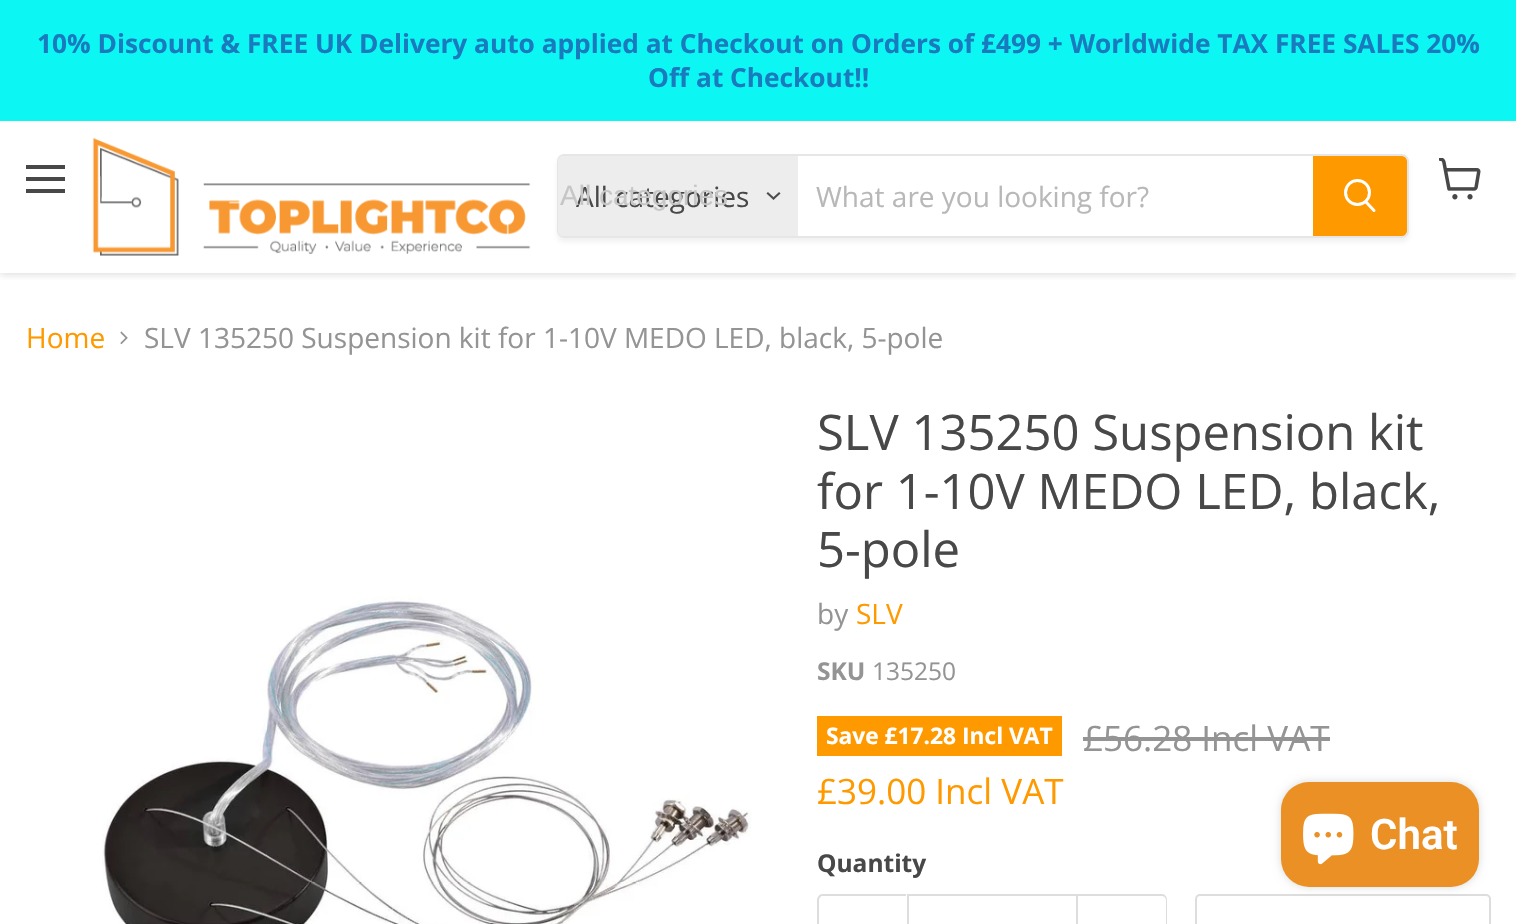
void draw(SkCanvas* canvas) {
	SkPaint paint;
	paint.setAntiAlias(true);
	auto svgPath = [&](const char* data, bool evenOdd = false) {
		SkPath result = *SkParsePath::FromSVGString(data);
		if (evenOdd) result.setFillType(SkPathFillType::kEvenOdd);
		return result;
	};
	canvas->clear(0xffffffff);
	canvas->save();
	canvas->clipRect(SkRect::MakeXYWH(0, 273, 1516, 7));
	paint.setColor(0x40808080);
	paint.setMaskFilter(SkMaskFilter::MakeBlur(kNormal_SkBlurStyle, 3.5));
	canvas->drawRect(SkRect::MakeXYWH(0, 123, 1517, 152), paint);
	paint.setMaskFilter(nullptr);
	canvas->restore();
	paint.setColor(0xff0cf6f4);
	canvas->drawRect(SkRect::MakeXYWH(0, 0, 1516, 121), paint);
	SkFont f1(fontMgr->matchFamilyStyle("Open Sans", SkFontStyle::Bold()), 26.25);
	f1.setSubpixel(true);
	paint.setColor(0xff197bbd);
	canvas->drawString("10% Discount & FREE UK Delivery auto applied at Checkout on Orders of £499 + Worldwide TAX FREE SALES 20%", 37, 53, f1, paint);
	canvas->drawString("Off at Checkout!!", 648, 87, f1, paint);
	paint.setColor(0xff484848);
	canvas->drawRect(SkRect::MakeXYWH(26, 165, 39, 4), paint);
	canvas->drawRect(SkRect::MakeXYWH(26, 177, 39, 4), paint);
	canvas->drawRect(SkRect::MakeXYWH(26, 189, 39, 4), paint);
	canvas->drawImageRect(SkImages::DeferredFromEncodedData(SkData::MakeFromFileName("img1.png")), SkRect::MakeXYWH(1439, 158, 42, 42), SkSamplingOptions());
	canvas->drawImageRect(SkImages::DeferredFromEncodedData(SkData::MakeFromFileName("img2.png")), SkRect::MakeXYWH(92, 138, 439, 118), SkSamplingOptions());
	canvas->save();
	canvas->clipPath(svgPath("M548 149H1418V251H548ZM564 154H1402C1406 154 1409 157 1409 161V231C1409 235 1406 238 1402 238H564C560 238 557 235 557 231V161C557 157 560 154 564 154Z", true), true);
	paint.setColor(0x1c808080);
	paint.setMaskFilter(SkMaskFilter::MakeBlur(kNormal_SkBlurStyle, 2.5));
	canvas->drawRoundRect(SkRect::MakeXYWH(557, 158, 852, 84), 7, 7, paint);
	paint.setMaskFilter(nullptr);
	canvas->restore();
	paint.setStroke(true);
	paint.setStrokeWidth(2);
	paint.setColor(0x33808080);
	canvas->drawRoundRect(SkRect::MakeXYWH(558, 155, 850, 82), 6, 6, paint);
	paint.setStroke(false);
	paint.setColor(0xffededed);
	canvas->drawPath(svgPath("M563 156H798V236H563C560 236 558 234 558 231V161C558 158 560 156 563 156Z"), paint);
	SkFont f2(fontMgr->matchFamilyStyle("Open Sans", SkFontStyle::Normal()), 28);
	f2.setSubpixel(true);
	paint.setColor(0xff484848);
	canvas->drawString("All categories", 576, 207, f2, paint);
	SkFont f3(fontMgr->matchFamilyStyle("Liberation Sans", SkFontStyle::Normal()), 28);
	f3.setSubpixel(true);
	paint.setColor(0xffc6c6c6);
	canvas->drawString("All categories", 560, 205, f3, paint);
	paint.setStroke(true);
	paint.setStrokeWidth(2.2);
	paint.setStrokeCap(SkPaint::kSquare_Cap);
	paint.setColor(0xff4d4d4d);
	canvas->drawPath(svgPath("M773.5 198.5L779 193.5M773.5 198.5L768 193.5"), paint);
	paint.setStroke(false);
	paint.setColor(0xffb8b8b8);
	canvas->drawString("What are you looking for?", 816, 207, f2, paint);
	paint.setColor(0xffff9900);
	canvas->drawPath(svgPath("M1314 157H1402C1404 157 1406 159 1406 161V231C1406 233 1404 235 1402 235H1314Z"), paint);
	paint.setStroke(true);
	paint.setStrokeWidth(2);
	paint.setStrokeCap(SkPaint::kButt_Cap);
	canvas->drawPath(svgPath("M1314 157H1402C1404 157 1406 159 1406 161V231C1406 233 1404 235 1402 235H1314Z"), paint);
	paint.setStrokeWidth(3);
	paint.setStrokeCap(SkPaint::kRound_Cap);
	paint.setColor(0xffffffff);
	canvas->drawPath(svgPath("M1374 210.5L1366 202"), paint);
	paint.setStrokeCap(SkPaint::kButt_Cap);
	canvas->drawCircle(1357.5, 192.5, 12, paint);
	paint.setStroke(false);
	paint.setColor(0xffff9900);
	canvas->drawString("Home", 26, 348, f2, paint);
	canvas->drawImageRect(SkImages::DeferredFromEncodedData(SkData::MakeFromFileName("img3.png")), SkRect::MakeXYWH(120, 331, 8, 14), SkSamplingOptions());
	paint.setColor(0xff949494);
	canvas->drawString("SLV 135250 Suspension kit for 1-10V MEDO LED, black, 5-pole", 144, 348, f2, paint);
	canvas->drawImageRect(SkImages::DeferredFromEncodedData(SkData::MakeFromFileName("img4.png")), SkRect::MakeXYWH(102, 596, 649, 328), SkSamplingOptions());
	SkFont f4(fontMgr->matchFamilyStyle("Open Sans", SkFontStyle::Normal()), 49);
	f4.setSubpixel(true);
	paint.setColor(0xff484848);
	canvas->drawString("SLV 135250 Suspension kit", 817, 450, f4, paint);
	canvas->drawString("for 1-10V MEDO LED, black,", 817, 509, f4, paint);
	canvas->drawString("5-pole", 817, 567, f4, paint);
	paint.setColor(0xff949494);
	canvas->drawString("by", 817, 624, f2, paint);
	paint.setColor(0xffff9900);
	canvas->drawString("SLV", 856, 624, f2, paint);
	SkFont f5(fontMgr->matchFamilyStyle("Open Sans", SkFontStyle::Bold()), 24.5);
	f5.setSubpixel(true);
	paint.setColor(0xff949494);
	canvas->drawString("SKU", 817, 680, f5, paint);
	SkFont f6(fontMgr->matchFamilyStyle("Open Sans", SkFontStyle::Normal()), 24.5);
	f6.setSubpixel(true);
	canvas->drawString("135250", 872, 680, f6, paint);
	SkFont f7(fontMgr->matchFamilyStyle("Open Sans", SkFontStyle::Normal()), 35);
	f7.setSubpixel(true);
	canvas->drawString("£56.28 Incl VAT", 1083, 751, f7, paint);
	canvas->drawRect(SkRect::MakeXYWH(1083, 737, 247, 4), paint);
	paint.setColor(0xffff9900);
	canvas->drawString("£39.00 Incl VAT", 817, 804, f7, paint);
	canvas->drawRect(SkRect::MakeXYWH(817, 716, 245, 40), paint);
	SkFont f8(fontMgr->matchFamilyStyle("Open Sans", SkFontStyle::Bold()), 22.75);
	f8.setSubpixel(true);
	paint.setColor(0xffffffff);
	canvas->drawString("Save £17.28 Incl VAT", 826, 744, f8, paint);
	paint.setColor(0xff484848);
	canvas->drawString("Quantity", 817, 872, f5, paint);
	paint.setColor(0xffdddddd);
	canvas->drawPath(svgPath("M822 894H906V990H822C820 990 817 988 817 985V900C817 897 820 894 822 894ZM822 896H906V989H822C821 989 819 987 819 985V900C819 898 821 896 822 896Z", true), paint);
	paint.setStroke(true);
	paint.setStrokeWidth(2);
	canvas->drawRect(SkRect::MakeXYWH(908, 895, 169, 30), paint);
	paint.setStroke(false);
	canvas->drawPath(svgPath("M1078 894H1162C1165 894 1167 897 1167 900V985C1167 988 1165 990 1162 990H1078ZM1078 896H1162C1164 896 1166 898 1166 900V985C1166 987 1164 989 1162 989H1078Z", true), paint);
	paint.setStroke(true);
	canvas->drawRoundRect(SkRect::MakeXYWH(1196, 895, 294, 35), 4, 4, paint);
	paint.setStroke(false);
	paint.setColor(0x26000000);
	paint.setMaskFilter(SkMaskFilter::MakeBlur(kNormal_SkBlurStyle, 4.5));
	canvas->drawRoundRect(SkRect::MakeXYWH(1281, 782, 198, 105), 28, 28, paint);
	paint.setMaskFilter(nullptr);
	paint.setColor(0xffea9024);
	canvas->drawRoundRect(SkRect::MakeXYWH(1281, 782, 198, 105), 28, 28, paint);
	canvas->drawImageRect(SkImages::DeferredFromEncodedData(SkData::MakeFromFileName("img5.png")), SkRect::MakeXYWH(1303, 813, 51, 52), SkSamplingOptions());
	SkFont f9(fontMgr->matchFamilyStyle("Roboto", SkFontStyle(600, SkFontStyle::kNormal_Width, SkFontStyle::kUpright_Slant)), 42);
	f9.setSubpixel(true);
	paint.setColor(0xffffffff);
	canvas->drawString("Chat", 1370, 849, f9, paint);
}
